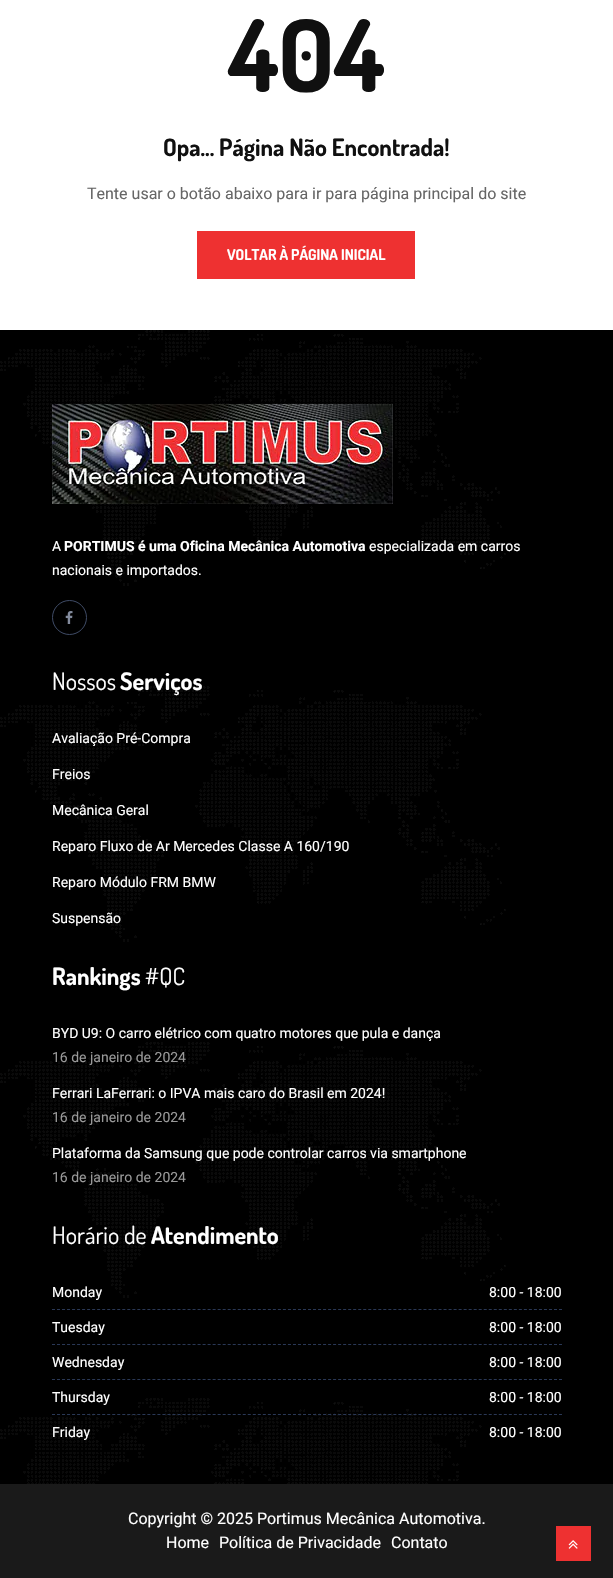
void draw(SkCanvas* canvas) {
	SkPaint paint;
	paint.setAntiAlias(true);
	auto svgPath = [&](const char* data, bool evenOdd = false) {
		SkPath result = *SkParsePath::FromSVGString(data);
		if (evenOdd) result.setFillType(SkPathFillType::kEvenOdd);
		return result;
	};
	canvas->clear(0xffffffff);
	SkFont f1(fontMgr->matchFamilyStyle("Dosis", SkFontStyle::Bold()), 100);
	f1.setSubpixel(true);
	paint.setColor(0xff101010);
	canvas->drawString("404", 228, 92, f1, paint);
	SkFont f2(fontMgr->matchFamilyStyle("Dosis", SkFontStyle::Bold()), 24);
	f2.setSubpixel(true);
	canvas->drawString("Opa... Página Não Encontrada!", 163, 156, f2, paint);
	SkFont f3(fontMgr->matchFamilyStyle("Roboto", SkFontStyle::Normal()), 16);
	f3.setSubpixel(true);
	paint.setColor(0xff666666);
	canvas->drawString("Tente usar o botão abaixo para ir para página principal do site", 87, 199, f3, paint);
	canvas->save();
	canvas->clipRect(SkRect::MakeXYWH(197, 231, 219, 48));
	paint.setColor(0xffee3131);
	canvas->drawPath(svgPath("M197 200V309H398L415 281V200Z", true), paint);
	canvas->restore();
	SkFont f4(fontMgr->matchFamilyStyle("Dosis", SkFontStyle::Bold()), 15);
	f4.setSubpixel(true);
	paint.setColor(0xffffffff);
	canvas->drawString("VOLTAR À PÁGINA INICIAL", 227, 260, f4, paint);
	paint.setColor(0xff000000);
	canvas->drawRect(SkRect::MakeXYWH(0, 330, 613, 1154), paint);
	canvas->drawImageRect(SkImages::DeferredFromEncodedData(SkData::MakeFromFileName("img1.png")), SkRect::MakeXYWH(0, 330, 506, 1154), SkSamplingOptions());
	canvas->drawImageRect(SkImages::DeferredFromEncodedData(SkData::MakeFromFileName("img2.png")), SkRect::MakeXYWH(52, 404, 341, 100), SkSamplingOptions());
	SkFont f5(fontMgr->matchFamilyStyle("Roboto", SkFontStyle::Normal()), 14);
	f5.setSubpixel(true);
	paint.setColor(0xffffffff);
	canvas->drawString("A", 52, 551, f5, paint);
	SkFont f6(fontMgr->matchFamilyStyle("Roboto", SkFontStyle::Bold()), 14);
	f6.setSubpixel(true);
	canvas->drawString("PORTIMUS é uma Oficina Mecânica Automotiva", 64, 551, f6, paint);
	canvas->drawString("especializada em carros", 369, 551, f5, paint);
	canvas->drawString("nacionais e importados.", 52, 575, f5, paint);
	paint.setStroke(true);
	paint.setStrokeWidth(1);
	paint.setColor(0xff3e4a65);
	canvas->drawCircle(69.5, 617.5, 17, paint);
	canvas->drawImageRect(SkImages::DeferredFromEncodedData(SkData::MakeFromFileName("img3.png")), SkRect::MakeXYWH(65, 611, 8, 13), SkSamplingOptions());
	SkFont f7(fontMgr->matchFamilyStyle("Dosis", SkFontStyle::Normal()), 24);
	f7.setSubpixel(true);
	paint.setStroke(false);
	paint.setColor(0xffffffff);
	canvas->drawString("Nossos", 52, 690, f7, paint);
	canvas->drawString("Serviços", 120, 690, f2, paint);
	canvas->drawString("Avaliação Pré-Compra", 52, 743, f5, paint);
	canvas->drawString("Freios", 52, 779, f5, paint);
	canvas->drawString("Mecânica Geral", 52, 815, f5, paint);
	canvas->drawString("Reparo Fluxo de Ar Mercedes Classe A 160/190", 52, 851, f5, paint);
	canvas->drawString("Reparo Módulo FRM BMW", 52, 887, f5, paint);
	canvas->drawString("Suspensão", 52, 923, f5, paint);
	canvas->drawString("Rankings", 52, 985, f2, paint);
	canvas->drawString("#QC", 145, 985, f7, paint);
	canvas->drawString("BYD U9: O carro elétrico com quatro motores que pula e dança", 52, 1038, f5, paint);
	paint.setColor(0xff999999);
	canvas->drawString("16 de janeiro de 2024", 52, 1062, f5, paint);
	paint.setColor(0xffffffff);
	canvas->drawString("Ferrari LaFerrari: o IPVA mais caro do Brasil em 2024!", 52, 1098, f5, paint);
	paint.setColor(0xff999999);
	canvas->drawString("16 de janeiro de 2024", 52, 1122, f5, paint);
	paint.setColor(0xffffffff);
	canvas->drawString("Plataforma da Samsung que pode controlar carros via smartphone", 52, 1158, f5, paint);
	paint.setColor(0xff999999);
	canvas->drawString("16 de janeiro de 2024", 52, 1182, f5, paint);
	paint.setColor(0xffffffff);
	canvas->drawString("Horário de", 52, 1244, f7, paint);
	canvas->drawString("Atendimento", 151, 1244, f2, paint);
	paint.setStroke(true);
	paint.setColor(0xff2a3856);
	paint.setPathEffect(SkDashPathEffect::Make({{3, 2.02f}}, 0));
	canvas->drawPath(svgPath("M52 1309.5H562"), paint);
	paint.setPathEffect(nullptr);
	paint.setStroke(false);
	paint.setColor(0xffffffff);
	canvas->drawString("Monday", 52, 1297, f5, paint);
	canvas->drawString("8:00 - 18:00", 489, 1297, f5, paint);
	paint.setStroke(true);
	paint.setColor(0xff2a3856);
	paint.setPathEffect(SkDashPathEffect::Make({{3, 2.02f}}, 0));
	canvas->drawPath(svgPath("M52 1344.5H562"), paint);
	paint.setPathEffect(nullptr);
	paint.setStroke(false);
	paint.setColor(0xffffffff);
	canvas->drawString("Tuesday", 52, 1332, f5, paint);
	canvas->drawString("8:00 - 18:00", 489, 1332, f5, paint);
	paint.setStroke(true);
	paint.setColor(0xff2a3856);
	paint.setPathEffect(SkDashPathEffect::Make({{3, 2.02f}}, 0));
	canvas->drawPath(svgPath("M52 1379.5H562"), paint);
	paint.setPathEffect(nullptr);
	paint.setStroke(false);
	paint.setColor(0xffffffff);
	canvas->drawString("Wednesday", 52, 1367, f5, paint);
	canvas->drawString("8:00 - 18:00", 489, 1367, f5, paint);
	paint.setStroke(true);
	paint.setColor(0xff2a3856);
	paint.setPathEffect(SkDashPathEffect::Make({{3, 2.02f}}, 0));
	canvas->drawPath(svgPath("M52 1414.5H562"), paint);
	paint.setPathEffect(nullptr);
	paint.setStroke(false);
	paint.setColor(0xffffffff);
	canvas->drawString("Thursday", 52, 1402, f5, paint);
	canvas->drawString("8:00 - 18:00", 489, 1402, f5, paint);
	canvas->drawString("Friday", 52, 1437, f5, paint);
	canvas->drawString("8:00 - 18:00", 489, 1437, f5, paint);
	paint.setColor(0xff1a1a1a);
	canvas->drawRect(SkRect::MakeXYWH(0, 1484, 613, 94), paint);
	paint.setColor(0xffffffff);
	canvas->drawString("Copyright © 2025 Portimus Mecânica Automotiva.", 128, 1524, f3, paint);
	canvas->drawString("Home", 166, 1548, f3, paint);
	canvas->drawString("Política de Privacidade", 219, 1548, f3, paint);
	canvas->drawString("Contato", 391, 1548, f3, paint);
	paint.setColor(0xffee3131);
	canvas->drawRect(SkRect::MakeXYWH(556, 1526, 35, 35), paint);
	canvas->drawImageRect(SkImages::DeferredFromEncodedData(SkData::MakeFromFileName("img4.png")), SkRect::MakeXYWH(568, 1540, 10, 9), SkSamplingOptions());
}
